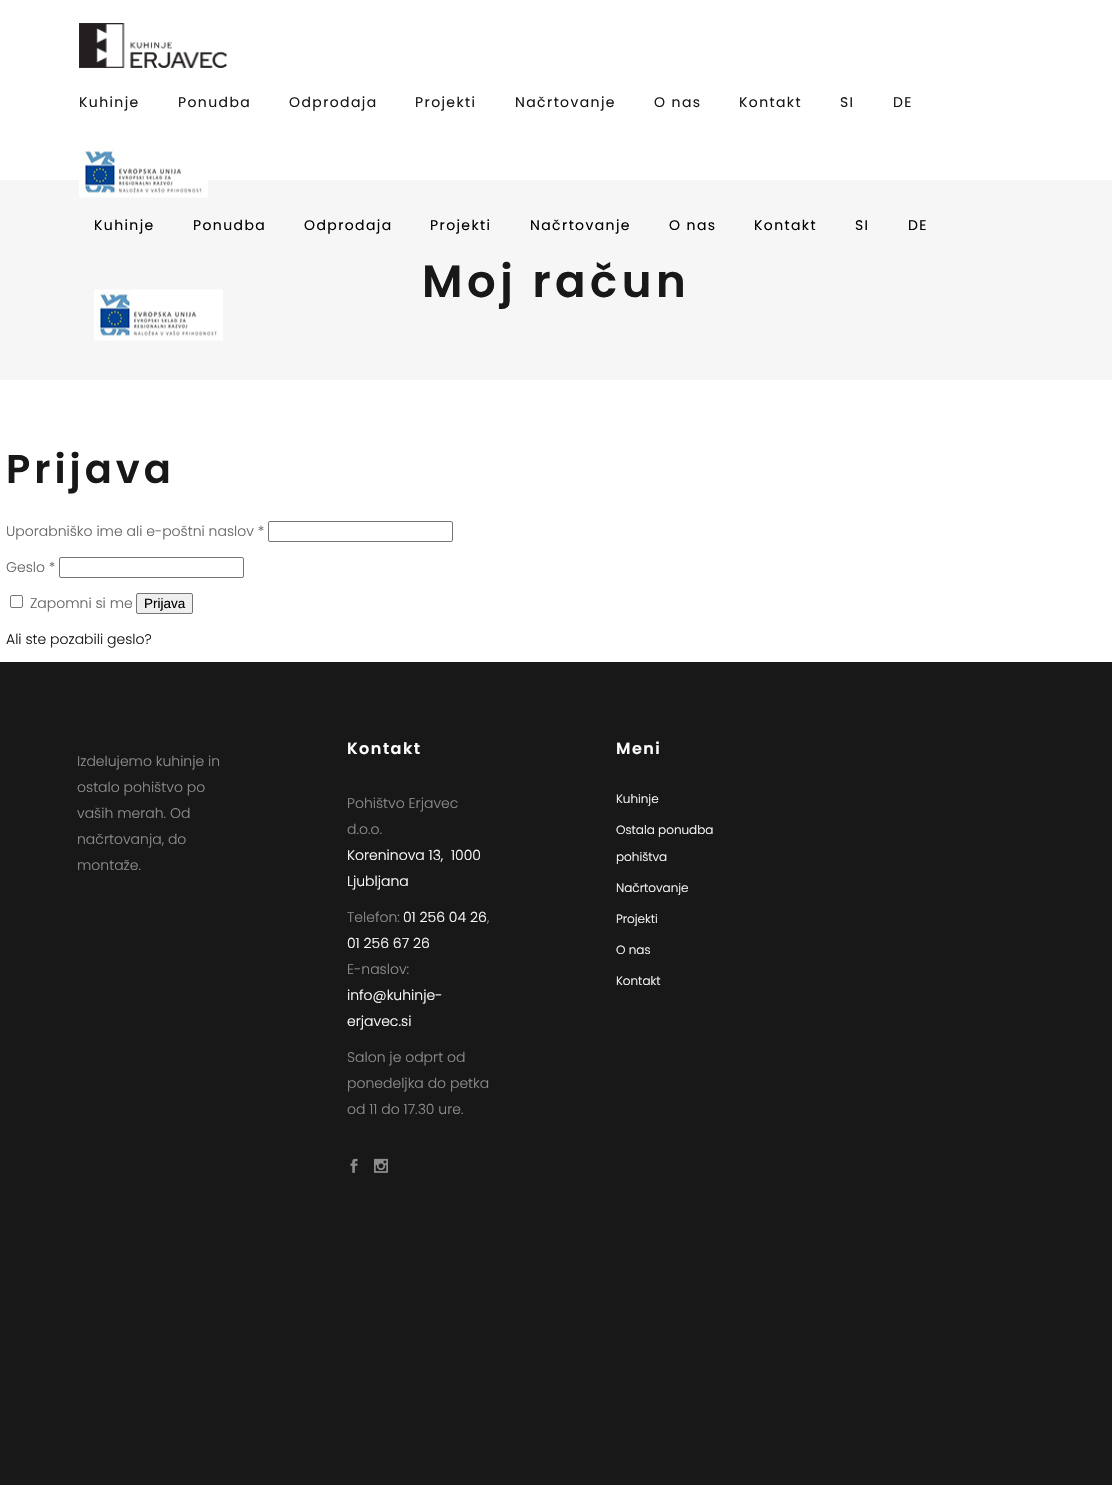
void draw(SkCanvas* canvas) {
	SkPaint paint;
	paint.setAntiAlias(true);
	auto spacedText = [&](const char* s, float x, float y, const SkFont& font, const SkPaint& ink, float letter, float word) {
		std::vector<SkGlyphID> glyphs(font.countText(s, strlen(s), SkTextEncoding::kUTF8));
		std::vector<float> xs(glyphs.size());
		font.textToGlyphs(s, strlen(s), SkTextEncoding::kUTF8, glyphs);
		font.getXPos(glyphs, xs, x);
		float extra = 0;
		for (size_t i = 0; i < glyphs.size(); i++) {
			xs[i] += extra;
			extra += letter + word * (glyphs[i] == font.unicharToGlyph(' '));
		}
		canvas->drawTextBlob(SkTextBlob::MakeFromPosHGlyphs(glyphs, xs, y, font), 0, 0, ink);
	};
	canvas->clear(0xffffffff);
	SkFont f1(fontMgr->matchFamilyStyle("Poppins", SkFontStyle::Normal()), 14);
	f1.setSubpixel(true);
	paint.setColor(0xff181818);
	spacedText("Kuhinje", 79, 107, f1, paint, 1.4, 0);
	spacedText("Ponudba", 178, 107, f1, paint, 1.4, 0);
	spacedText("Odprodaja", 289, 107, f1, paint, 1.4, 0);
	spacedText("Projekti", 415, 107, f1, paint, 1.4, 0);
	spacedText("Načrtovanje", 515, 107, f1, paint, 1.4, 0);
	spacedText("O nas", 654, 107, f1, paint, 1.4, 0);
	spacedText("Kontakt", 739, 107, f1, paint, 1.4, 0);
	spacedText("SI", 840, 107, f1, paint, 1.4, 0);
	spacedText("DE", 893, 107, f1, paint, 1.4, 0);
	paint.setColor(0xfff6f6f6);
	canvas->drawRect(SkRect::MakeXYWH(0, 180, 1112, 200), paint);
	canvas->drawImageRect(SkImages::DeferredFromEncodedData(SkData::MakeFromFileName("img1.png")), SkRect::MakeXYWH(79, 147, 129, 51), SkSamplingOptions());
	canvas->drawImageRect(SkImages::DeferredFromEncodedData(SkData::MakeFromFileName("img2.png")), SkRect::MakeXYWH(79, 23, 148, 45), SkSamplingOptions());
	paint.setColor(0xff000000);
	spacedText("Kuhinje", 94, 230, f1, paint, 1.4, 0);
	spacedText("Ponudba", 193, 230, f1, paint, 1.4, 0);
	spacedText("Odprodaja", 304, 230, f1, paint, 1.4, 0);
	spacedText("Projekti", 430, 230, f1, paint, 1.4, 0);
	spacedText("Načrtovanje", 530, 230, f1, paint, 1.4, 0);
	spacedText("O nas", 669, 230, f1, paint, 1.4, 0);
	spacedText("Kontakt", 754, 230, f1, paint, 1.4, 0);
	spacedText("SI", 855, 230, f1, paint, 1.4, 0);
	spacedText("DE", 908, 230, f1, paint, 1.4, 0);
	canvas->drawImageRect(SkImages::DeferredFromEncodedData(SkData::MakeFromFileName("img3.png")), SkRect::MakeXYWH(94, 289, 129, 52), SkSamplingOptions());
	SkFont f2(fontMgr->matchFamilyStyle("Poppins", SkFontStyle(600, SkFontStyle::kNormal_Width, SkFontStyle::kUpright_Slant)), 45);
	f2.setSubpixel(true);
	paint.setColor(0xff181818);
	spacedText("Moj račun", 422, 297, f2, paint, 4.5, 0);
	SkFont f3(fontMgr->matchFamilyStyle("Poppins", SkFontStyle(600, SkFontStyle::kNormal_Width, SkFontStyle::kUpright_Slant)), 40);
	f3.setSubpixel(true);
	spacedText("Prijava", 6, 483, f3, paint, 4, 0);
	SkFont f4(fontMgr->matchFamilyStyle("Poppins", SkFontStyle(300, SkFontStyle::kNormal_Width, SkFontStyle::kUpright_Slant)), 14);
	f4.setSubpixel(true);
	paint.setColor(0xff666666);
	canvas->drawString("Uporabniško ime ali e-poštni naslov *", 6, 536, f4, paint);
	paint.setStroke(true);
	paint.setStrokeWidth(1);
	paint.setColor(0xff767676);
	canvas->drawRoundRect(SkRect::MakeXYWH(268.5, 521.5, 184, 20), 1.5, 1.5, paint);
	paint.setStroke(false);
	paint.setColor(0xff666666);
	canvas->drawString("Geslo *", 6, 572, f4, paint);
	paint.setStroke(true);
	paint.setColor(0xff767676);
	canvas->drawRoundRect(SkRect::MakeXYWH(59.5, 557.5, 184, 20), 1.5, 1.5, paint);
	canvas->drawRoundRect(SkRect::MakeXYWH(10.5, 595.5, 12, 12), 1.5, 1.5, paint);
	paint.setStroke(false);
	paint.setColor(0xff666666);
	canvas->drawString("Zapomni si me", 30, 608, f4, paint);
	paint.setColor(0xffefefef);
	canvas->drawRoundRect(SkRect::MakeXYWH(136.5, 593.5, 56, 20), 1.5, 1.5, paint);
	paint.setStroke(true);
	paint.setColor(0xff767676);
	canvas->drawRoundRect(SkRect::MakeXYWH(136.5, 593.5, 56, 20), 1.5, 1.5, paint);
	SkFont f5(fontMgr->matchFamilyStyle("Liberation Sans", SkFontStyle::Normal()), 13.5);
	f5.setSubpixel(true);
	paint.setStroke(false);
	paint.setColor(0xff000000);
	canvas->drawString("Prijava", 144, 608, f5, paint);
	paint.setColor(0xff181818);
	canvas->drawString("Ali ste pozabili geslo?", 6, 644, f4, paint);
	canvas->drawRect(SkRect::MakeXYWH(0, 662, 1112, 823), paint);
	paint.setColor(0xff8d8d8d);
	canvas->drawString("Izdelujemo kuhinje in", 77, 766, f4, paint);
	canvas->drawString("ostalo pohištvo po", 77, 792, f4, paint);
	canvas->drawString("vaših merah. Od", 77, 818, f4, paint);
	canvas->drawString("načrtovanja, do", 77, 844, f4, paint);
	canvas->drawString("montaže.", 77, 870, f4, paint);
	SkFont f6(fontMgr->matchFamilyStyle("Poppins", SkFontStyle(600, SkFontStyle::kNormal_Width, SkFontStyle::kUpright_Slant)), 16);
	f6.setSubpixel(true);
	paint.setColor(0xffffffff);
	spacedText("Kontakt", 347, 754, f6, paint, 1.5, 0);
	paint.setColor(0xff8d8d8d);
	canvas->drawString("Pohištvo Erjavec", 347, 808, f4, paint);
	canvas->drawString("d.o.o.", 347, 834, f4, paint);
	paint.setColor(0xffffffff);
	canvas->drawString("Koreninova 13,  1000", 347, 860, f4, paint);
	canvas->drawString("Ljubljana", 347, 886, f4, paint);
	paint.setColor(0xff8d8d8d);
	canvas->drawString("Telefon:", 347, 922, f4, paint);
	paint.setColor(0xffffffff);
	canvas->drawString("01 256 04 26", 403, 922, f4, paint);
	paint.setColor(0xff8d8d8d);
	canvas->drawString(",", 487, 922, f4, paint);
	paint.setColor(0xffffffff);
	canvas->drawString("01 256 67 26", 347, 948, f4, paint);
	paint.setColor(0xff8d8d8d);
	canvas->drawString("E-naslov:", 347, 974, f4, paint);
	paint.setColor(0xffffffff);
	canvas->drawString("info@kuhinje-", 347, 1000, f4, paint);
	canvas->drawString("erjavec.si", 347, 1026, f4, paint);
	paint.setColor(0xff8d8d8d);
	canvas->drawString("Salon je odprt od", 347, 1062, f4, paint);
	canvas->drawString("ponedeljka do petka", 347, 1088, f4, paint);
	canvas->drawString("od 11 do 17.30 ure.", 347, 1114, f4, paint);
	canvas->drawImageRect(SkImages::DeferredFromEncodedData(SkData::MakeFromFileName("img4.png")), SkRect::MakeXYWH(350, 1158, 8, 15), SkSamplingOptions());
	canvas->drawImageRect(SkImages::DeferredFromEncodedData(SkData::MakeFromFileName("img5.png")), SkRect::MakeXYWH(374, 1158, 14, 15), SkSamplingOptions());
	paint.setColor(0xffffffff);
	spacedText("Meni", 616, 754, f6, paint, 1.5, 0);
	SkFont f7(fontMgr->matchFamilyStyle("Poppins", SkFontStyle(300, SkFontStyle::kNormal_Width, SkFontStyle::kUpright_Slant)), 12);
	f7.setSubpixel(true);
	canvas->drawString("Kuhinje", 616, 803, f7, paint);
	canvas->drawString("Ostala ponudba", 616, 834, f7, paint);
	canvas->drawString("pohištva", 616, 861, f7, paint);
	canvas->drawString("Načrtovanje", 616, 892, f7, paint);
	canvas->drawString("Projekti", 616, 923, f7, paint);
	canvas->drawString("O nas", 616, 954, f7, paint);
	canvas->drawString("Kontakt", 616, 985, f7, paint);
}
